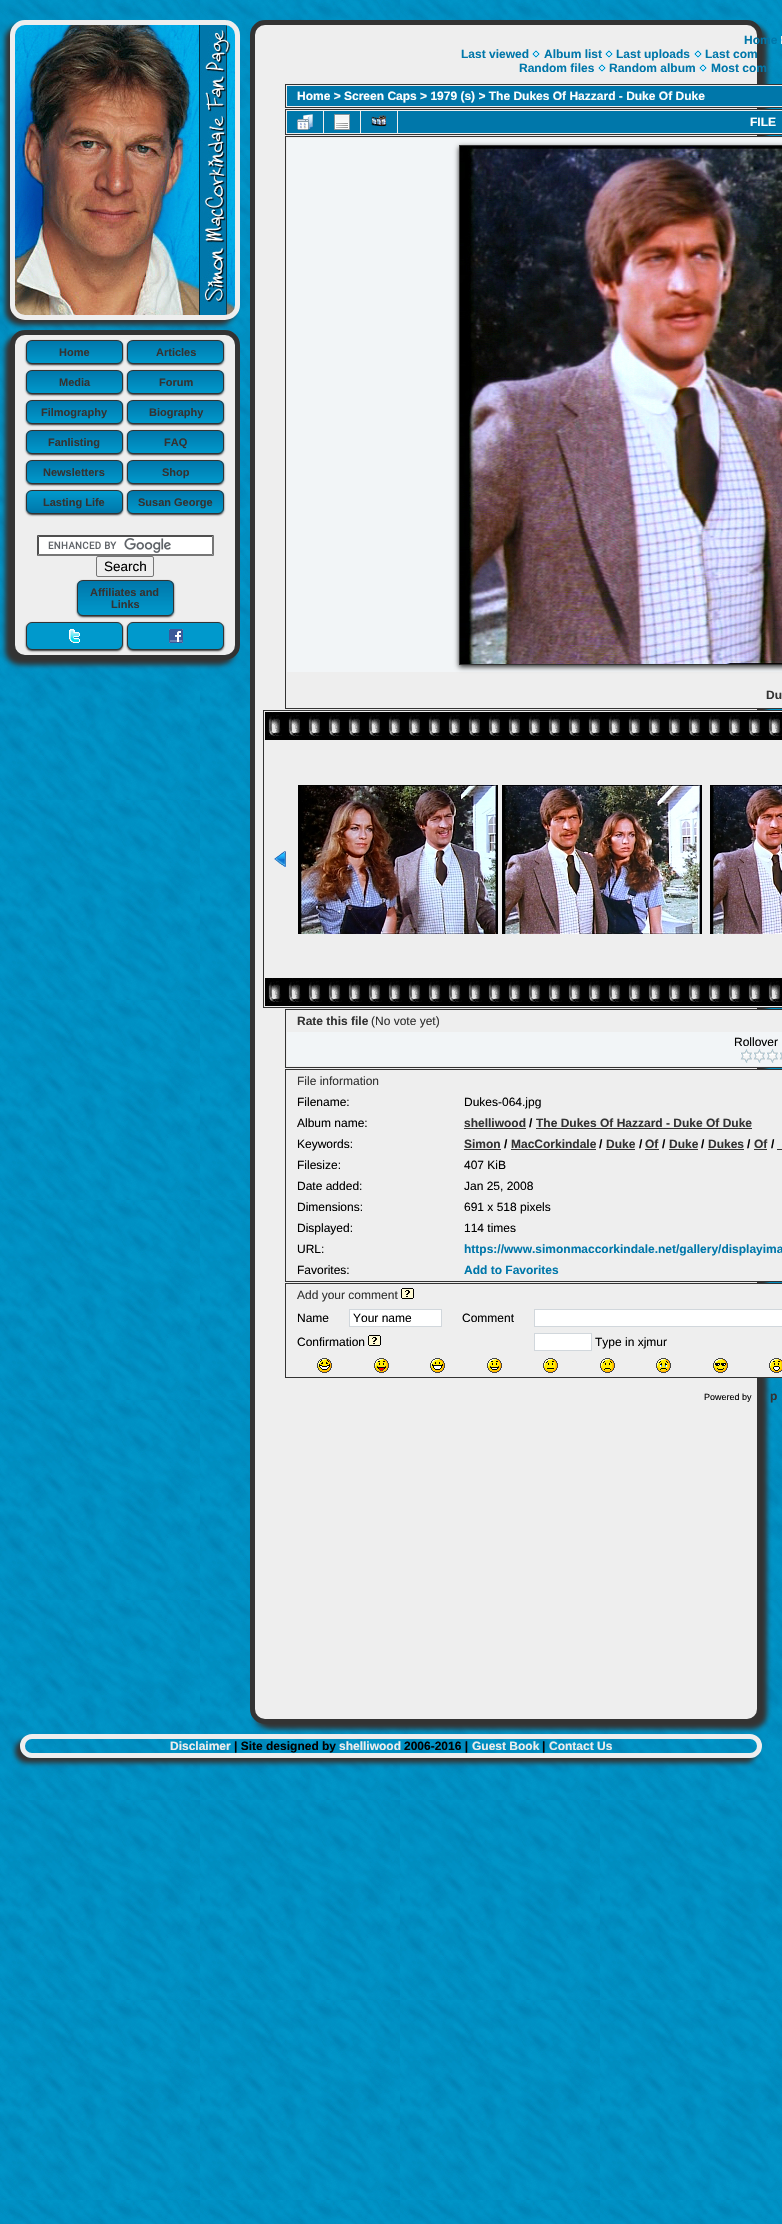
void draw(SkCanvas* canvas) {
	SkPaint paint;
	paint.setAntiAlias(true);
	auto svgPath = [&](const char* data, bool evenOdd = false) {
		SkPath result = *SkParsePath::FromSVGString(data);
		if (evenOdd) result.setFillType(SkPathFillType::kEvenOdd);
		return result;
	};
	canvas->clear(0xffffffff);
	canvas->drawImageRect(SkImages::DeferredFromEncodedData(SkData::MakeFromFileName("img1.png")), SkRect::MakeXYWH(0, 0, 782, 2224), SkSamplingOptions());
	paint.setColor(0xff333333);
	paint.setMaskFilter(SkMaskFilter::MakeBlur(kNormal_SkBlurStyle, 2.5));
	canvas->drawRoundRect(SkRect::MakeXYWH(5, 25, 230, 300), 15, 15, paint);
	paint.setMaskFilter(nullptr);
	canvas->drawImageRect(SkImages::DeferredFromEncodedData(SkData::MakeFromFileName("img2.png")), SkRect::MakeXYWH(15, 20, 225, 295), SkSamplingOptions());
	paint.setStroke(true);
	paint.setStrokeWidth(5);
	paint.setColor(0xffeeeeee);
	canvas->drawRoundRect(SkRect::MakeXYWH(12.5, 22.5, 225, 295), 12.5, 12.5, paint);
	paint.setStroke(false);
	paint.setColor(0xff333333);
	paint.setMaskFilter(SkMaskFilter::MakeBlur(kNormal_SkBlurStyle, 2.5));
	canvas->drawRoundRect(SkRect::MakeXYWH(5, 335, 230, 330), 15, 15, paint);
	paint.setMaskFilter(nullptr);
	paint.setColor(0xffeeeeee);
	canvas->drawRoundRect(SkRect::MakeXYWH(12.5, 332.5, 225, 325), 12.5, 12.5, paint);
	paint.setStroke(true);
	paint.setColor(0xff333333);
	canvas->drawRoundRect(SkRect::MakeXYWH(12.5, 332.5, 225, 325), 12.5, 12.5, paint);
	paint.setStroke(false);
	paint.setMaskFilter(SkMaskFilter::MakeBlur(kNormal_SkBlurStyle, 1));
	canvas->drawRoundRect(SkRect::MakeXYWH(26, 341, 97, 24), 6, 6, paint);
	paint.setMaskFilter(nullptr);
	canvas->save();
	canvas->clipPath(svgPath("M32 340H117C120.5 340 123 342.5 123 346V358C123 361.5 120.5 364 117 364H32C28.5 364 26 361.5 26 358V346C26 342.5 28.5 340 32 340Z"), true);
	{
		const SkColor colors[] = {0xff0077aa, 0xff0099cc};
		const float stops[] = {0, 1};
		const SkPoint ends[] = {{75, 341}, {75, 363}};
		paint.setShader(SkGradientShader::MakeLinear(ends, colors, stops, 2, SkTileMode::kClamp));
		paint.setAlpha(255);
	}
	canvas->drawRect(SkRect::MakeXYWH(26, 341, 97, 22), paint);
	canvas->restore();
	paint.setStroke(true);
	paint.setStrokeWidth(1);
	paint.setShader(nullptr);
	paint.setColor(0xff333333);
	canvas->drawRoundRect(SkRect::MakeXYWH(26.5, 340.5, 96, 23), 5.5, 5.5, paint);
	SkFont f1(fontMgr->matchFamilyStyle("Liberation Sans", SkFontStyle::Bold()), 11);
	f1.setSubpixel(true);
	paint.setStroke(false);
	canvas->drawString("Home", 59, 356, f1, paint);
	paint.setMaskFilter(SkMaskFilter::MakeBlur(kNormal_SkBlurStyle, 1));
	canvas->drawRoundRect(SkRect::MakeXYWH(127, 341, 97, 24), 6, 6, paint);
	paint.setMaskFilter(nullptr);
	canvas->save();
	canvas->clipPath(svgPath("M133 340H218C221.5 340 224 342.5 224 346V358C224 361.5 221.5 364 218 364H133C129.5 364 127 361.5 127 358V346C127 342.5 129.5 340 133 340Z"), true);
	{
		const SkColor colors[] = {0xff0077aa, 0xff0099cc};
		const float stops[] = {0, 1};
		const SkPoint ends[] = {{176, 341}, {176, 363}};
		paint.setShader(SkGradientShader::MakeLinear(ends, colors, stops, 2, SkTileMode::kClamp));
		paint.setAlpha(255);
	}
	canvas->drawRect(SkRect::MakeXYWH(127, 341, 97, 22), paint);
	canvas->restore();
	paint.setStroke(true);
	paint.setShader(nullptr);
	paint.setColor(0xff333333);
	canvas->drawRoundRect(SkRect::MakeXYWH(127.5, 340.5, 96, 23), 5.5, 5.5, paint);
	paint.setStroke(false);
	canvas->drawString("Articles", 156, 356, f1, paint);
	paint.setMaskFilter(SkMaskFilter::MakeBlur(kNormal_SkBlurStyle, 1));
	canvas->drawRoundRect(SkRect::MakeXYWH(26, 371, 97, 24), 6, 6, paint);
	paint.setMaskFilter(nullptr);
	canvas->save();
	canvas->clipPath(svgPath("M32 370H117C120.5 370 123 372.5 123 376V388C123 391.5 120.5 394 117 394H32C28.5 394 26 391.5 26 388V376C26 372.5 28.5 370 32 370Z"), true);
	{
		const SkColor colors[] = {0xff0077aa, 0xff0099cc};
		const float stops[] = {0, 1};
		const SkPoint ends[] = {{75, 371}, {75, 393}};
		paint.setShader(SkGradientShader::MakeLinear(ends, colors, stops, 2, SkTileMode::kClamp));
		paint.setAlpha(255);
	}
	canvas->drawRect(SkRect::MakeXYWH(26, 371, 97, 22), paint);
	canvas->restore();
	paint.setStroke(true);
	paint.setShader(nullptr);
	paint.setColor(0xff333333);
	canvas->drawRoundRect(SkRect::MakeXYWH(26.5, 370.5, 96, 23), 5.5, 5.5, paint);
	paint.setStroke(false);
	canvas->drawString("Media", 59, 386, f1, paint);
	paint.setMaskFilter(SkMaskFilter::MakeBlur(kNormal_SkBlurStyle, 1));
	canvas->drawRoundRect(SkRect::MakeXYWH(127, 371, 97, 24), 6, 6, paint);
	paint.setMaskFilter(nullptr);
	canvas->save();
	canvas->clipPath(svgPath("M133 370H218C221.5 370 224 372.5 224 376V388C224 391.5 221.5 394 218 394H133C129.5 394 127 391.5 127 388V376C127 372.5 129.5 370 133 370Z"), true);
	{
		const SkColor colors[] = {0xff0077aa, 0xff0099cc};
		const float stops[] = {0, 1};
		const SkPoint ends[] = {{176, 371}, {176, 393}};
		paint.setShader(SkGradientShader::MakeLinear(ends, colors, stops, 2, SkTileMode::kClamp));
		paint.setAlpha(255);
	}
	canvas->drawRect(SkRect::MakeXYWH(127, 371, 97, 22), paint);
	canvas->restore();
	paint.setStroke(true);
	paint.setShader(nullptr);
	paint.setColor(0xff333333);
	canvas->drawRoundRect(SkRect::MakeXYWH(127.5, 370.5, 96, 23), 5.5, 5.5, paint);
	paint.setStroke(false);
	canvas->drawString("Forum", 159, 386, f1, paint);
	paint.setMaskFilter(SkMaskFilter::MakeBlur(kNormal_SkBlurStyle, 1));
	canvas->drawRoundRect(SkRect::MakeXYWH(26, 401, 97, 24), 6, 6, paint);
	paint.setMaskFilter(nullptr);
	canvas->save();
	canvas->clipPath(svgPath("M32 400H117C120.5 400 123 402.5 123 406V418C123 421.5 120.5 424 117 424H32C28.5 424 26 421.5 26 418V406C26 402.5 28.5 400 32 400Z"), true);
	{
		const SkColor colors[] = {0xff0077aa, 0xff0099cc};
		const float stops[] = {0, 1};
		const SkPoint ends[] = {{75, 401}, {75, 423}};
		paint.setShader(SkGradientShader::MakeLinear(ends, colors, stops, 2, SkTileMode::kClamp));
		paint.setAlpha(255);
	}
	canvas->drawRect(SkRect::MakeXYWH(26, 401, 97, 22), paint);
	canvas->restore();
	paint.setStroke(true);
	paint.setShader(nullptr);
	paint.setColor(0xff333333);
	canvas->drawRoundRect(SkRect::MakeXYWH(26.5, 400.5, 96, 23), 5.5, 5.5, paint);
	paint.setStroke(false);
	canvas->drawString("Filmography", 41, 416, f1, paint);
	paint.setMaskFilter(SkMaskFilter::MakeBlur(kNormal_SkBlurStyle, 1));
	canvas->drawRoundRect(SkRect::MakeXYWH(127, 401, 97, 24), 6, 6, paint);
	paint.setMaskFilter(nullptr);
	canvas->save();
	canvas->clipPath(svgPath("M133 400H218C221.5 400 224 402.5 224 406V418C224 421.5 221.5 424 218 424H133C129.5 424 127 421.5 127 418V406C127 402.5 129.5 400 133 400Z"), true);
	{
		const SkColor colors[] = {0xff0077aa, 0xff0099cc};
		const float stops[] = {0, 1};
		const SkPoint ends[] = {{176, 401}, {176, 423}};
		paint.setShader(SkGradientShader::MakeLinear(ends, colors, stops, 2, SkTileMode::kClamp));
		paint.setAlpha(255);
	}
	canvas->drawRect(SkRect::MakeXYWH(127, 401, 97, 22), paint);
	canvas->restore();
	paint.setStroke(true);
	paint.setShader(nullptr);
	paint.setColor(0xff333333);
	canvas->drawRoundRect(SkRect::MakeXYWH(127.5, 400.5, 96, 23), 5.5, 5.5, paint);
	paint.setStroke(false);
	canvas->drawString("Biography", 149, 416, f1, paint);
	paint.setMaskFilter(SkMaskFilter::MakeBlur(kNormal_SkBlurStyle, 1));
	canvas->drawRoundRect(SkRect::MakeXYWH(26, 431, 97, 24), 6, 6, paint);
	paint.setMaskFilter(nullptr);
	canvas->save();
	canvas->clipPath(svgPath("M32 430H117C120.5 430 123 432.5 123 436V448C123 451.5 120.5 454 117 454H32C28.5 454 26 451.5 26 448V436C26 432.5 28.5 430 32 430Z"), true);
	{
		const SkColor colors[] = {0xff0077aa, 0xff0099cc};
		const float stops[] = {0, 1};
		const SkPoint ends[] = {{75, 431}, {75, 453}};
		paint.setShader(SkGradientShader::MakeLinear(ends, colors, stops, 2, SkTileMode::kClamp));
		paint.setAlpha(255);
	}
	canvas->drawRect(SkRect::MakeXYWH(26, 431, 97, 22), paint);
	canvas->restore();
	paint.setStroke(true);
	paint.setShader(nullptr);
	paint.setColor(0xff333333);
	canvas->drawRoundRect(SkRect::MakeXYWH(26.5, 430.5, 96, 23), 5.5, 5.5, paint);
	paint.setStroke(false);
	canvas->drawString("Fanlisting", 48, 446, f1, paint);
	paint.setMaskFilter(SkMaskFilter::MakeBlur(kNormal_SkBlurStyle, 1));
	canvas->drawRoundRect(SkRect::MakeXYWH(127, 431, 97, 24), 6, 6, paint);
	paint.setMaskFilter(nullptr);
	canvas->save();
	canvas->clipPath(svgPath("M133 430H218C221.5 430 224 432.5 224 436V448C224 451.5 221.5 454 218 454H133C129.5 454 127 451.5 127 448V436C127 432.5 129.5 430 133 430Z"), true);
	{
		const SkColor colors[] = {0xff0077aa, 0xff0099cc};
		const float stops[] = {0, 1};
		const SkPoint ends[] = {{176, 431}, {176, 453}};
		paint.setShader(SkGradientShader::MakeLinear(ends, colors, stops, 2, SkTileMode::kClamp));
		paint.setAlpha(255);
	}
	canvas->drawRect(SkRect::MakeXYWH(127, 431, 97, 22), paint);
	canvas->restore();
	paint.setStroke(true);
	paint.setShader(nullptr);
	paint.setColor(0xff333333);
	canvas->drawRoundRect(SkRect::MakeXYWH(127.5, 430.5, 96, 23), 5.5, 5.5, paint);
	paint.setStroke(false);
	canvas->drawString("FAQ", 164, 446, f1, paint);
	paint.setMaskFilter(SkMaskFilter::MakeBlur(kNormal_SkBlurStyle, 1));
	canvas->drawRoundRect(SkRect::MakeXYWH(26, 461, 97, 24), 6, 6, paint);
	paint.setMaskFilter(nullptr);
	canvas->save();
	canvas->clipPath(svgPath("M32 460H117C120.5 460 123 462.5 123 466V478C123 481.5 120.5 484 117 484H32C28.5 484 26 481.5 26 478V466C26 462.5 28.5 460 32 460Z"), true);
	{
		const SkColor colors[] = {0xff0077aa, 0xff0099cc};
		const float stops[] = {0, 1};
		const SkPoint ends[] = {{75, 461}, {75, 483}};
		paint.setShader(SkGradientShader::MakeLinear(ends, colors, stops, 2, SkTileMode::kClamp));
		paint.setAlpha(255);
	}
	canvas->drawRect(SkRect::MakeXYWH(26, 461, 97, 22), paint);
	canvas->restore();
	paint.setStroke(true);
	paint.setShader(nullptr);
	paint.setColor(0xff333333);
	canvas->drawRoundRect(SkRect::MakeXYWH(26.5, 460.5, 96, 23), 5.5, 5.5, paint);
	paint.setStroke(false);
	canvas->drawString("Newsletters", 43, 476, f1, paint);
	paint.setMaskFilter(SkMaskFilter::MakeBlur(kNormal_SkBlurStyle, 1));
	canvas->drawRoundRect(SkRect::MakeXYWH(127, 461, 97, 24), 6, 6, paint);
	paint.setMaskFilter(nullptr);
	canvas->save();
	canvas->clipPath(svgPath("M133 460H218C221.5 460 224 462.5 224 466V478C224 481.5 221.5 484 218 484H133C129.5 484 127 481.5 127 478V466C127 462.5 129.5 460 133 460Z"), true);
	{
		const SkColor colors[] = {0xff0077aa, 0xff0099cc};
		const float stops[] = {0, 1};
		const SkPoint ends[] = {{176, 461}, {176, 483}};
		paint.setShader(SkGradientShader::MakeLinear(ends, colors, stops, 2, SkTileMode::kClamp));
		paint.setAlpha(255);
	}
	canvas->drawRect(SkRect::MakeXYWH(127, 461, 97, 22), paint);
	canvas->restore();
	paint.setStroke(true);
	paint.setShader(nullptr);
	paint.setColor(0xff333333);
	canvas->drawRoundRect(SkRect::MakeXYWH(127.5, 460.5, 96, 23), 5.5, 5.5, paint);
	paint.setStroke(false);
	canvas->drawString("Shop", 162, 476, f1, paint);
	paint.setMaskFilter(SkMaskFilter::MakeBlur(kNormal_SkBlurStyle, 1));
	canvas->drawRoundRect(SkRect::MakeXYWH(26, 491, 97, 24), 6, 6, paint);
	paint.setMaskFilter(nullptr);
	canvas->save();
	canvas->clipPath(svgPath("M32 490H117C120.5 490 123 492.5 123 496V508C123 511.5 120.5 514 117 514H32C28.5 514 26 511.5 26 508V496C26 492.5 28.5 490 32 490Z"), true);
	{
		const SkColor colors[] = {0xff0099cc, 0xff0077aa};
		const float stops[] = {0, 1};
		const SkPoint ends[] = {{75, 491}, {75, 513}};
		paint.setShader(SkGradientShader::MakeLinear(ends, colors, stops, 2, SkTileMode::kClamp));
		paint.setAlpha(255);
	}
	canvas->drawRect(SkRect::MakeXYWH(26, 491, 97, 22), paint);
	canvas->restore();
	paint.setStroke(true);
	paint.setShader(nullptr);
	paint.setColor(0xff333333);
	canvas->drawRoundRect(SkRect::MakeXYWH(26.5, 490.5, 96, 23), 5.5, 5.5, paint);
	paint.setStroke(false);
	canvas->drawString("Lasting Life", 43, 506, f1, paint);
	paint.setMaskFilter(SkMaskFilter::MakeBlur(kNormal_SkBlurStyle, 1));
	canvas->drawRoundRect(SkRect::MakeXYWH(127, 491, 97, 24), 6, 6, paint);
	paint.setMaskFilter(nullptr);
	canvas->save();
	canvas->clipPath(svgPath("M133 490H218C221.5 490 224 492.5 224 496V508C224 511.5 221.5 514 218 514H133C129.5 514 127 511.5 127 508V496C127 492.5 129.5 490 133 490Z"), true);
	{
		const SkColor colors[] = {0xff0077aa, 0xff0099cc};
		const float stops[] = {0, 1};
		const SkPoint ends[] = {{176, 491}, {176, 513}};
		paint.setShader(SkGradientShader::MakeLinear(ends, colors, stops, 2, SkTileMode::kClamp));
		paint.setAlpha(255);
	}
	canvas->drawRect(SkRect::MakeXYWH(127, 491, 97, 22), paint);
	canvas->restore();
	paint.setStroke(true);
	paint.setShader(nullptr);
	paint.setColor(0xff333333);
	canvas->drawRoundRect(SkRect::MakeXYWH(127.5, 490.5, 96, 23), 5.5, 5.5, paint);
	paint.setStroke(false);
	canvas->drawString("Susan George", 138, 506, f1, paint);
	paint.setColor(0xffffffff);
	canvas->drawRect(SkRect::MakeXYWH(37, 535, 177, 21), paint);
	canvas->drawImageRect(SkImages::DeferredFromEncodedData(SkData::MakeFromFileName("img3.png")), SkRect::MakeXYWH(48, 538, 123, 15), SkSamplingOptions());
	paint.setColor(0xff4f4f4f);
	canvas->drawPath(svgPath("M37 535H214L212 537H39Z"), paint);
	paint.setColor(0xff767676);
	canvas->drawPath(svgPath("M214 535V556L212 554V537Z"), paint);
	canvas->drawPath(svgPath("M214 556H37L39 554H212Z"), paint);
	paint.setColor(0xff4f4f4f);
	canvas->drawPath(svgPath("M37 556V535L39 537V554Z"), paint);
	paint.setStroke(true);
	paint.setColor(0xff767676);
	canvas->drawRoundRect(SkRect::MakeXYWH(96.5, 556.5, 57, 20), 1.5, 1.5, paint);
	SkFont f2(fontMgr->matchFamilyStyle("Liberation Sans", SkFontStyle::Normal()), 13.5);
	f2.setSubpixel(true);
	paint.setStroke(false);
	paint.setColor(0xff000000);
	canvas->drawString("Search", 104, 571, f2, paint);
	paint.setColor(0xff333333);
	paint.setMaskFilter(SkMaskFilter::MakeBlur(kNormal_SkBlurStyle, 1));
	canvas->drawRoundRect(SkRect::MakeXYWH(77, 581, 97, 36), 6, 6, paint);
	paint.setMaskFilter(nullptr);
	canvas->save();
	canvas->clipPath(svgPath("M83 580H168C171.5 580 174 582.5 174 586V610C174 613.5 171.5 616 168 616H83C79.5 616 77 613.5 77 610V586C77 582.5 79.5 580 83 580Z"), true);
	{
		const SkColor colors[] = {0xff0077aa, 0xff0099cc};
		const float stops[] = {0, 1};
		const SkPoint ends[] = {{126, 581}, {126, 615}};
		paint.setShader(SkGradientShader::MakeLinear(ends, colors, stops, 2, SkTileMode::kClamp));
		paint.setAlpha(255);
	}
	canvas->drawRect(SkRect::MakeXYWH(77, 581, 97, 34), paint);
	canvas->restore();
	paint.setStroke(true);
	paint.setShader(nullptr);
	paint.setColor(0xff333333);
	canvas->drawRoundRect(SkRect::MakeXYWH(77.5, 580.5, 96, 35), 5.5, 5.5, paint);
	paint.setStroke(false);
	canvas->drawString("Affiliates and", 90, 596, f1, paint);
	canvas->drawString("Links", 111, 608, f1, paint);
	paint.setMaskFilter(SkMaskFilter::MakeBlur(kNormal_SkBlurStyle, 1));
	canvas->drawRoundRect(SkRect::MakeXYWH(26, 623, 97, 28), 6, 6, paint);
	paint.setMaskFilter(nullptr);
	paint.setColor(0xff0099cc);
	canvas->drawRoundRect(SkRect::MakeXYWH(26.5, 622.5, 96, 27), 5.5, 5.5, paint);
	paint.setStroke(true);
	paint.setColor(0xff333333);
	canvas->drawRoundRect(SkRect::MakeXYWH(26.5, 622.5, 96, 27), 5.5, 5.5, paint);
	canvas->drawImageRect(SkImages::DeferredFromEncodedData(SkData::MakeFromFileName("img4.png")), SkRect::MakeXYWH(69, 629, 11, 14), SkSamplingOptions());
	paint.setStroke(false);
	paint.setMaskFilter(SkMaskFilter::MakeBlur(kNormal_SkBlurStyle, 1));
	canvas->drawRoundRect(SkRect::MakeXYWH(127, 623, 97, 28), 6, 6, paint);
	paint.setMaskFilter(nullptr);
	paint.setColor(0xff0099cc);
	canvas->drawRoundRect(SkRect::MakeXYWH(127.5, 622.5, 96, 27), 5.5, 5.5, paint);
	paint.setStroke(true);
	paint.setColor(0xff333333);
	canvas->drawRoundRect(SkRect::MakeXYWH(127.5, 622.5, 96, 27), 5.5, 5.5, paint);
	canvas->drawImageRect(SkImages::DeferredFromEncodedData(SkData::MakeFromFileName("img5.png")), SkRect::MakeXYWH(169, 629, 14, 14), SkSamplingOptions());
	paint.setStroke(false);
	paint.setMaskFilter(SkMaskFilter::MakeBlur(kNormal_SkBlurStyle, 2.5));
	canvas->drawRoundRect(SkRect::MakeXYWH(255, 25, 512, 1704), 15, 15, paint);
	paint.setMaskFilter(nullptr);
	paint.setColor(0xffeeeeee);
	canvas->drawRoundRect(SkRect::MakeXYWH(252.5, 22.5, 507, 1699), 12.5, 12.5, paint);
	paint.setStroke(true);
	paint.setStrokeWidth(5);
	paint.setColor(0xff333333);
	canvas->drawRoundRect(SkRect::MakeXYWH(252.5, 22.5, 507, 1699), 12.5, 12.5, paint);
	SkFont f3(fontMgr->matchFamilyStyle("Liberation Sans", SkFontStyle::Bold()), 12);
	f3.setSubpixel(true);
	paint.setStroke(false);
	paint.setColor(0xff0077aa);
	canvas->drawString("Home", 744, 44, f3, paint);
	canvas->drawImageRect(SkImages::DeferredFromEncodedData(SkData::MakeFromFileName("img6.png")), SkRect::MakeXYWH(781, 36, 1, 8), SkSamplingOptions());
	canvas->drawString("Last viewed", 461, 58, f3, paint);
	canvas->drawImageRect(SkImages::DeferredFromEncodedData(SkData::MakeFromFileName("img7.png")), SkRect::MakeXYWH(532, 50, 8, 8), SkSamplingOptions());
	canvas->drawString("Album list", 544, 58, f3, paint);
	canvas->drawImageRect(SkImages::DeferredFromEncodedData(SkData::MakeFromFileName("img7.png")), SkRect::MakeXYWH(605, 50, 8, 8), SkSamplingOptions());
	canvas->drawString("Last uploads", 616, 58, f3, paint);
	canvas->drawImageRect(SkImages::DeferredFromEncodedData(SkData::MakeFromFileName("img7.png")), SkRect::MakeXYWH(694, 50, 8, 8), SkSamplingOptions());
	canvas->drawString("Last com", 705, 58, f3, paint);
	canvas->drawString("Random files", 519, 72, f3, paint);
	canvas->drawImageRect(SkImages::DeferredFromEncodedData(SkData::MakeFromFileName("img7.png")), SkRect::MakeXYWH(598, 64, 8, 8), SkSamplingOptions());
	canvas->drawString("Random album", 609, 72, f3, paint);
	canvas->drawImageRect(SkImages::DeferredFromEncodedData(SkData::MakeFromFileName("img7.png")), SkRect::MakeXYWH(699, 64, 8, 8), SkSamplingOptions());
	canvas->drawString("Most com", 711, 72, f3, paint);
	paint.setColor(0xffeeeeee);
	canvas->drawRect(SkRect::MakeXYWH(757, 85, 25, 22), paint);
	paint.setStroke(true);
	paint.setStrokeWidth(1);
	paint.setColor(0xff333333);
	canvas->drawRect(SkRect::MakeXYWH(285.5, 84.5, 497, 23), paint);
	paint.setStroke(false);
	paint.setColor(0xff0077aa);
	canvas->drawRect(SkRect::MakeXYWH(287, 86, 495, 20), paint);
	paint.setColor(0xffffffff);
	canvas->drawString("Home > Screen Caps > 1979 (s) > The Dukes Of Hazzard - Duke Of Duke", 297, 100, f3, paint);
	paint.setColor(0xffeeeeee);
	canvas->drawRect(SkRect::MakeXYWH(757, 110, 25, 24), paint);
	paint.setStroke(true);
	paint.setColor(0xff333333);
	canvas->drawRect(SkRect::MakeXYWH(285.5, 109.5, 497, 25), paint);
	paint.setStroke(false);
	paint.setColor(0xff0077aa);
	canvas->drawRect(SkRect::MakeXYWH(287, 111, 36, 22), paint);
	canvas->drawImageRect(SkImages::DeferredFromEncodedData(SkData::MakeFromFileName("img8.png")), SkRect::MakeXYWH(297, 114, 16, 16), SkSamplingOptions());
	canvas->drawRect(SkRect::MakeXYWH(324, 111, 36, 22), paint);
	canvas->drawImageRect(SkImages::DeferredFromEncodedData(SkData::MakeFromFileName("img9.png")), SkRect::MakeXYWH(334, 114, 16, 16), SkSamplingOptions());
	canvas->drawRect(SkRect::MakeXYWH(361, 111, 36, 22), paint);
	canvas->drawImageRect(SkImages::DeferredFromEncodedData(SkData::MakeFromFileName("img10.png")), SkRect::MakeXYWH(371, 115, 16, 12), SkSamplingOptions());
	canvas->drawRect(SkRect::MakeXYWH(398, 111, 384, 22), paint);
	paint.setColor(0xffffffff);
	canvas->drawString("FILE", 750, 126, f3, paint);
	paint.setColor(0xffeeeeee);
	canvas->drawRect(SkRect::MakeXYWH(757, 137, 25, 571), paint);
	paint.setStroke(true);
	paint.setColor(0xff333333);
	canvas->drawRect(SkRect::MakeXYWH(285.5, 136.5, 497, 572), paint);
	paint.setStroke(false);
	paint.setColor(0xfff2f5f7);
	canvas->drawRect(SkRect::MakeXYWH(287, 138, 495, 534), paint);
	paint.setColor(0xff333333);
	paint.setMaskFilter(SkMaskFilter::MakeBlur(kNormal_SkBlurStyle, 2.5));
	canvas->drawRect(SkRect::MakeXYWH(459, 147, 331, 520), paint);
	paint.setMaskFilter(nullptr);
	paint.setStroke(true);
	canvas->drawRect(SkRect::MakeXYWH(459.5, 145.5, 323, 519), paint);
	canvas->drawImageRect(SkImages::DeferredFromEncodedData(SkData::MakeFromFileName("img11.png")), SkRect::MakeXYWH(460, 146, 322, 518), SkSamplingOptions());
	paint.setStroke(false);
	canvas->drawString("Du", 766, 699, f3, paint);
	paint.setColor(0xffeeeeee);
	canvas->drawRect(SkRect::MakeXYWH(757, 711, 25, 296), paint);
	paint.setStroke(true);
	paint.setColor(0xff333333);
	canvas->drawRect(SkRect::MakeXYWH(263.5, 710.5, 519, 297), paint);
	canvas->drawImageRect(SkImages::DeferredFromEncodedData(SkData::MakeFromFileName("img12.png")), SkRect::MakeXYWH(265, 712, 517, 28), SkSamplingOptions());
	canvas->drawImageRect(SkImages::DeferredFromEncodedData(SkData::MakeFromFileName("img13.png")), SkRect::MakeXYWH(274, 851, 12, 16), SkSamplingOptions());
	canvas->drawImageRect(SkImages::DeferredFromEncodedData(SkData::MakeFromFileName("img14.png")), SkRect::MakeXYWH(298, 785, 200, 149), SkSamplingOptions());
	canvas->drawImageRect(SkImages::DeferredFromEncodedData(SkData::MakeFromFileName("img15.png")), SkRect::MakeXYWH(502, 785, 200, 149), SkSamplingOptions());
	canvas->drawImageRect(SkImages::DeferredFromEncodedData(SkData::MakeFromFileName("img16.png")), SkRect::MakeXYWH(710, 785, 72, 149), SkSamplingOptions());
	canvas->drawImageRect(SkImages::DeferredFromEncodedData(SkData::MakeFromFileName("img12.png")), SkRect::MakeXYWH(265, 978, 517, 28), SkSamplingOptions());
	paint.setStroke(false);
	paint.setColor(0xffeeeeee);
	canvas->drawRect(SkRect::MakeXYWH(757, 1010, 25, 57), paint);
	paint.setStroke(true);
	paint.setColor(0xff333333);
	canvas->drawRect(SkRect::MakeXYWH(285.5, 1009.5, 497, 58), paint);
	paint.setStroke(false);
	canvas->drawString("Rate this file", 297, 1025, f3, paint);
	SkFont f4(fontMgr->matchFamilyStyle("Liberation Sans", SkFontStyle::Normal()), 12);
	f4.setSubpixel(true);
	canvas->drawString("(No vote yet)", 371, 1025, f4, paint);
	paint.setColor(0xfff2f5f7);
	canvas->drawRect(SkRect::MakeXYWH(287, 1032, 495, 34), paint);
	paint.setColor(0xff000000);
	canvas->drawString("Rollover", 734, 1046, f4, paint);
	canvas->drawImageRect(SkImages::DeferredFromEncodedData(SkData::MakeFromFileName("img17.png")), SkRect::MakeXYWH(740, 1049, 13, 14), SkSamplingOptions());
	canvas->drawImageRect(SkImages::DeferredFromEncodedData(SkData::MakeFromFileName("img17.png")), SkRect::MakeXYWH(753, 1049, 13, 14), SkSamplingOptions());
	canvas->drawImageRect(SkImages::DeferredFromEncodedData(SkData::MakeFromFileName("img17.png")), SkRect::MakeXYWH(766, 1049, 13, 14), SkSamplingOptions());
	canvas->drawImageRect(SkImages::DeferredFromEncodedData(SkData::MakeFromFileName("img18.png")), SkRect::MakeXYWH(779, 1052, 3, 8), SkSamplingOptions());
	paint.setColor(0xffeeeeee);
	canvas->drawRect(SkRect::MakeXYWH(757, 1070, 25, 211), paint);
	paint.setStroke(true);
	paint.setColor(0xff333333);
	canvas->drawRect(SkRect::MakeXYWH(285.5, 1069.5, 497, 212), paint);
	paint.setStroke(false);
	canvas->drawString("File information", 297, 1085, f4, paint);
	paint.setColor(0xff000000);
	canvas->drawString("Filename:", 297, 1106, f4, paint);
	canvas->drawString("Dukes-064.jpg", 464, 1106, f4, paint);
	canvas->drawString("Album name:", 297, 1127, f4, paint);
	paint.setColor(0xff333333);
	canvas->drawString("shelliwood", 464, 1127, f3, paint);
	canvas->drawRect(SkRect::MakeXYWH(464, 1128, 62, 1), paint);
	paint.setColor(0xff000000);
	canvas->drawString("/", 529, 1127, f3, paint);
	paint.setColor(0xff333333);
	canvas->drawString("The Dukes Of Hazzard - Duke Of Duke", 536, 1127, f3, paint);
	canvas->drawRect(SkRect::MakeXYWH(536, 1128, 216, 1), paint);
	paint.setColor(0xff000000);
	canvas->drawString("Keywords:", 297, 1148, f4, paint);
	paint.setColor(0xff333333);
	canvas->drawString("Simon", 464, 1148, f3, paint);
	canvas->drawRect(SkRect::MakeXYWH(464, 1149, 37, 1), paint);
	paint.setColor(0xff000000);
	canvas->drawString("/", 504, 1148, f3, paint);
	paint.setColor(0xff333333);
	canvas->drawString("MacCorkindale", 511, 1148, f3, paint);
	canvas->drawRect(SkRect::MakeXYWH(511, 1149, 85, 1), paint);
	paint.setColor(0xff000000);
	canvas->drawString("/", 599, 1148, f3, paint);
	paint.setColor(0xff333333);
	canvas->drawString("Duke", 606, 1148, f3, paint);
	canvas->drawRect(SkRect::MakeXYWH(606, 1149, 29, 1), paint);
	paint.setColor(0xff000000);
	canvas->drawString("/", 639, 1148, f3, paint);
	paint.setColor(0xff333333);
	canvas->drawString("Of", 645, 1148, f3, paint);
	canvas->drawRect(SkRect::MakeXYWH(645, 1149, 14, 1), paint);
	paint.setColor(0xff000000);
	canvas->drawString("/", 662, 1148, f3, paint);
	paint.setColor(0xff333333);
	canvas->drawString("Duke", 669, 1148, f3, paint);
	canvas->drawRect(SkRect::MakeXYWH(669, 1149, 29, 1), paint);
	paint.setColor(0xff000000);
	canvas->drawString("/", 701, 1148, f3, paint);
	paint.setColor(0xff333333);
	canvas->drawString("Dukes", 708, 1148, f3, paint);
	canvas->drawRect(SkRect::MakeXYWH(708, 1149, 36, 1), paint);
	paint.setColor(0xff000000);
	canvas->drawString("/", 747, 1148, f3, paint);
	paint.setColor(0xff333333);
	canvas->drawString("Of", 754, 1148, f3, paint);
	canvas->drawRect(SkRect::MakeXYWH(754, 1149, 13, 1), paint);
	paint.setColor(0xff000000);
	canvas->drawString("/", 771, 1148, f3, paint);
	paint.setColor(0xff333333);
	canvas->drawRect(SkRect::MakeXYWH(777, 1149, 5, 1), paint);
	paint.setColor(0xff000000);
	canvas->drawString("Filesize:", 297, 1169, f4, paint);
	canvas->drawString("407 KiB", 464, 1169, f4, paint);
	canvas->drawString("Date added:", 297, 1190, f4, paint);
	canvas->drawString("Jan 25, 2008", 464, 1190, f4, paint);
	canvas->drawString("Dimensions:", 297, 1211, f4, paint);
	canvas->drawString("691 x 518 pixels", 464, 1211, f4, paint);
	canvas->drawString("Displayed:", 297, 1232, f4, paint);
	canvas->drawString("114 times", 464, 1232, f4, paint);
	canvas->drawString("URL:", 297, 1253, f4, paint);
	paint.setColor(0xff0077aa);
	canvas->drawString("https://www.simonmaccorkindale.net/gallery/displayima", 464, 1253, f3, paint);
	paint.setColor(0xff000000);
	canvas->drawString("Favorites:", 297, 1274, f4, paint);
	paint.setColor(0xff0077aa);
	canvas->drawString("Add to Favorites", 464, 1274, f3, paint);
	paint.setColor(0xffeeeeee);
	canvas->drawRect(SkRect::MakeXYWH(757, 1284, 25, 93), paint);
	paint.setStroke(true);
	paint.setColor(0xff333333);
	canvas->drawRect(SkRect::MakeXYWH(285.5, 1283.5, 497, 94), paint);
	paint.setStroke(false);
	canvas->drawString("Add your comment", 297, 1299, f4, paint);
	canvas->drawImageRect(SkImages::DeferredFromEncodedData(SkData::MakeFromFileName("img19.png")), SkRect::MakeXYWH(401, 1288, 13, 11), SkSamplingOptions());
	paint.setColor(0xff000000);
	canvas->drawString("Name", 297, 1322, f4, paint);
	paint.setColor(0xffffffff);
	canvas->drawRect(SkRect::MakeXYWH(349.5, 1309.5, 92, 17), paint);
	paint.setStroke(true);
	paint.setColor(0xffd1d7dc);
	canvas->drawRect(SkRect::MakeXYWH(349.5, 1309.5, 92, 17), paint);
	paint.setStroke(false);
	paint.setColor(0xff000000);
	canvas->drawString("Your name", 353, 1322, f4, paint);
	canvas->drawString("Comment", 462, 1322, f4, paint);
	paint.setColor(0xffffffff);
	canvas->drawRect(SkRect::MakeXYWH(534.5, 1309.5, 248, 17), paint);
	paint.setStroke(true);
	paint.setColor(0xffd1d7dc);
	canvas->drawRect(SkRect::MakeXYWH(534.5, 1309.5, 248, 17), paint);
	paint.setStroke(false);
	paint.setColor(0xff000000);
	canvas->drawString("Confirmation", 297, 1346, f4, paint);
	canvas->drawImageRect(SkImages::DeferredFromEncodedData(SkData::MakeFromFileName("img19.png")), SkRect::MakeXYWH(368, 1335, 13, 11), SkSamplingOptions());
	paint.setColor(0xffffffff);
	canvas->drawRect(SkRect::MakeXYWH(534.5, 1333.5, 57, 17), paint);
	paint.setStroke(true);
	paint.setColor(0xffd1d7dc);
	canvas->drawRect(SkRect::MakeXYWH(534.5, 1333.5, 57, 17), paint);
	paint.setStroke(false);
	paint.setColor(0xff000000);
	canvas->drawString("Type in xjmur", 595, 1346, f4, paint);
	canvas->drawImageRect(SkImages::DeferredFromEncodedData(SkData::MakeFromFileName("img20.png")), SkRect::MakeXYWH(317, 1358, 15, 15), SkSamplingOptions());
	canvas->drawImageRect(SkImages::DeferredFromEncodedData(SkData::MakeFromFileName("img21.png")), SkRect::MakeXYWH(374, 1358, 15, 15), SkSamplingOptions());
	canvas->drawImageRect(SkImages::DeferredFromEncodedData(SkData::MakeFromFileName("img22.png")), SkRect::MakeXYWH(430, 1358, 15, 15), SkSamplingOptions());
	canvas->drawImageRect(SkImages::DeferredFromEncodedData(SkData::MakeFromFileName("img23.png")), SkRect::MakeXYWH(487, 1358, 15, 15), SkSamplingOptions());
	canvas->drawImageRect(SkImages::DeferredFromEncodedData(SkData::MakeFromFileName("img24.png")), SkRect::MakeXYWH(543, 1358, 15, 15), SkSamplingOptions());
	canvas->drawImageRect(SkImages::DeferredFromEncodedData(SkData::MakeFromFileName("img25.png")), SkRect::MakeXYWH(600, 1358, 15, 15), SkSamplingOptions());
	canvas->drawImageRect(SkImages::DeferredFromEncodedData(SkData::MakeFromFileName("img26.png")), SkRect::MakeXYWH(656, 1358, 15, 15), SkSamplingOptions());
	canvas->drawImageRect(SkImages::DeferredFromEncodedData(SkData::MakeFromFileName("img27.png")), SkRect::MakeXYWH(713, 1358, 15, 15), SkSamplingOptions());
	canvas->drawImageRect(SkImages::DeferredFromEncodedData(SkData::MakeFromFileName("img28.png")), SkRect::MakeXYWH(769, 1358, 13, 15), SkSamplingOptions());
	SkFont f5(fontMgr->matchFamilyStyle("Liberation Sans", SkFontStyle::Normal()), 9);
	f5.setSubpixel(true);
	canvas->drawString("Powered by", 704, 1400, f5, paint);
	paint.setColor(0xff333333);
	canvas->drawString("p", 770, 1400, f3, paint);
	canvas->save();
	canvas->clipPath(svgPath("M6 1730H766V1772H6ZM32 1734H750C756.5 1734 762 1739.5 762 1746C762 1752.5 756.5 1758 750 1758H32C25.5 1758 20 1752.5 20 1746C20 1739.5 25.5 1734 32 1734Z", true), true);
	paint.setMaskFilter(SkMaskFilter::MakeBlur(kNormal_SkBlurStyle, 2.5));
	canvas->drawRoundRect(SkRect::MakeXYWH(15, 1739, 742, 24), 12, 12, paint);
	paint.setMaskFilter(nullptr);
	canvas->restore();
	paint.setStroke(true);
	paint.setStrokeWidth(5);
	paint.setColor(0xffeeeeee);
	canvas->drawRoundRect(SkRect::MakeXYWH(22.5, 1736.5, 737, 19), 9.5, 9.5, paint);
	paint.setStroke(false);
	canvas->drawString("Disclaimer", 170, 1750, f3, paint);
	paint.setColor(0xff000000);
	canvas->drawString("| Site designed by", 234, 1750, f3, paint);
	paint.setColor(0xffeeeeee);
	canvas->drawString("shelliwood", 339, 1750, f3, paint);
	paint.setColor(0xff000000);
	canvas->drawString("2006-2016 |", 404, 1750, f3, paint);
	paint.setColor(0xffeeeeee);
	canvas->drawString("Guest Book", 472, 1750, f3, paint);
	paint.setColor(0xff000000);
	canvas->drawString("|", 542, 1750, f3, paint);
	paint.setColor(0xffeeeeee);
	canvas->drawString("Contact Us", 549, 1750, f3, paint);
}
